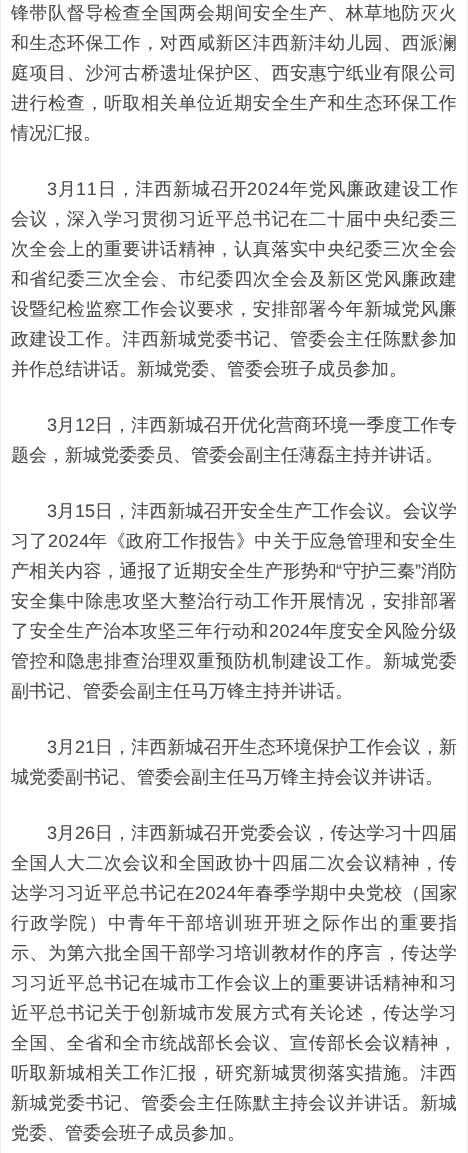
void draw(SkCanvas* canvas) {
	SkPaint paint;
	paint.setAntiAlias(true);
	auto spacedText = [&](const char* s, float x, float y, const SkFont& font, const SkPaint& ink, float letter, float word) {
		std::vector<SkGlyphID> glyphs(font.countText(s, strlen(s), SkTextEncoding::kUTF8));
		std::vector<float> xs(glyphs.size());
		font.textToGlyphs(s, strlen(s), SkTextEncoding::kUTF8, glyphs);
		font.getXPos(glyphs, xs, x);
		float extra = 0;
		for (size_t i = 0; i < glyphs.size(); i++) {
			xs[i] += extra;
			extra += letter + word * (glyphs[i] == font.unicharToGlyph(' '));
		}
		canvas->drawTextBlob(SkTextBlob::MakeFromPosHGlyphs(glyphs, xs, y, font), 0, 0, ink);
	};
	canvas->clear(0xffffffff);
	paint.setStroke(true);
	paint.setStrokeWidth(1);
	paint.setColor(0xffeeeeee);
	canvas->drawRect(SkRect::MakeXYWH(0.5, -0.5, 467, 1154), paint);
	SkFont f1(fontMgr->matchFamilyStyle("WenQuanYi Zen Hei", SkFontStyle(500, SkFontStyle::kNormal_Width, SkFontStyle::kUpright_Slant)), 18);
	f1.setSubpixel(true);
	paint.setStroke(false);
	paint.setColor(0xff4b4c4c);
	spacedText("锋带队督导检查全国两会期间安全生产、林草地防灭火", 11, 19, f1, paint, 0.6, 0);
	spacedText("和生态环保工作，对西咸新区沣西新沣幼儿园、西派澜", 11, 49, f1, paint, 0.6, 0);
	spacedText("庭项目、沙河古桥遗址保护区、西安惠宁纸业有限公司", 11, 79, f1, paint, 0.6, 0);
	spacedText("进行检查，听取相关单位近期安全生产和生态环保工作", 11, 109, f1, paint, 0.6, 0);
	canvas->drawString("情况汇报。", 11, 139, f1, paint);
	SkFont f2(fontMgr->matchFamilyStyle("Liberation Sans", SkFontStyle::Normal()), 18);
	f2.setSubpixel(true);
	spacedText("3", 47, 195, f2, paint, 0.75, 0);
	spacedText("月", 58, 195, f1, paint, 0.75, 0);
	spacedText("11", 76, 195, f2, paint, 0.75, 0);
	spacedText("日，沣西新城召开", 98, 195, f1, paint, 0.75, 0);
	spacedText("2024", 247, 195, f2, paint, 0.75, 0);
	spacedText("年党风廉政建设工作", 290, 195, f1, paint, 0.75, 0);
	spacedText("会议，深入学习贯彻习近平总书记在二十届中央纪委三", 11, 225, f1, paint, 0.6, 0);
	spacedText("次全会上的重要讲话精神，认真落实中央纪委三次全会", 11, 255, f1, paint, 0.6, 0);
	spacedText("和省纪委三次全会、市纪委四次全会及新区党风廉政建", 11, 285, f1, paint, 0.6, 0);
	spacedText("设暨纪检监察工作会议要求，安排部署今年新城党风廉", 11, 315, f1, paint, 0.6, 0);
	spacedText("政建设工作。沣西新城党委书记、管委会主任陈默参加", 11, 345, f1, paint, 0.6, 0);
	canvas->drawString("并作总结讲话。新城党委、管委会班子成员参加。", 11, 375, f1, paint);
	spacedText("3", 47, 431, f2, paint, 0.1, 0);
	spacedText("月", 57, 431, f1, paint, 0.1, 0);
	spacedText("12", 75, 431, f2, paint, 0.1, 0);
	spacedText("日，沣西新城召开优化营商环境一季度工作专", 95, 431, f1, paint, 0.1, 0);
	canvas->drawString("题会，新城党委委员、管委会副主任薄磊主持并讲话。", 11, 461, f1, paint);
	spacedText("3", 47, 517, f2, paint, 0.1, 0);
	spacedText("月", 57, 517, f1, paint, 0.1, 0);
	spacedText("15", 75, 517, f2, paint, 0.1, 0);
	spacedText("日，沣西新城召开安全生产工作会议。会议学", 95, 517, f1, paint, 0.1, 0);
	spacedText("习了", 11, 547, f1, paint, 0.4, 0);
	spacedText("2024", 48, 547, f2, paint, 0.4, 0);
	spacedText("年《政府工作报告》中关于应急管理和安全生", 89, 547, f1, paint, 0.4, 0);
	spacedText("产相关内容，通报了近期安全生产形势和", 11, 577, f1, paint, 0.1, 0);
	spacedText("“", 336, 577, f2, paint, 0.1, 0);
	spacedText("守护三秦", 343, 577, f1, paint, 0.1, 0);
	spacedText("”", 415, 577, f2, paint, 0.1, 0);
	spacedText("消防", 421, 577, f1, paint, 0.1, 0);
	spacedText("安全集中除患攻坚大整治行动工作开展情况，安排部署", 11, 607, f1, paint, 0.6, 0);
	spacedText("了安全生产治本攻坚三年行动和", 11, 637, f1, paint, 0.4, 0);
	spacedText("2024", 269, 637, f2, paint, 0.4, 0);
	spacedText("年度安全风险分级", 310, 637, f1, paint, 0.4, 0);
	spacedText("管控和隐患排查治理双重预防机制建设工作。新城党委", 11, 667, f1, paint, 0.6, 0);
	canvas->drawString("副书记、管委会副主任马万锋主持并讲话。", 11, 697, f1, paint);
	spacedText("3", 47, 753, f2, paint, 0.1, 0);
	spacedText("月", 57, 753, f1, paint, 0.1, 0);
	spacedText("21", 75, 753, f2, paint, 0.1, 0);
	spacedText("日，沣西新城召开生态环境保护工作会议，新", 95, 753, f1, paint, 0.1, 0);
	canvas->drawString("城党委副书记、管委会副主任马万锋主持会议并讲话。", 11, 783, f1, paint);
	spacedText("3", 47, 839, f2, paint, 0.1, 0);
	spacedText("月", 57, 839, f1, paint, 0.1, 0);
	spacedText("26", 75, 839, f2, paint, 0.1, 0);
	spacedText("日，沣西新城召开党委会议，传达学习十四届", 95, 839, f1, paint, 0.1, 0);
	spacedText("全国人大二次会议和全国政协十四届二次会议精神，传", 11, 869, f1, paint, 0.6, 0);
	spacedText("达学习习近平总书记在", 11, 899, f1, paint, 0.4, 0);
	spacedText("2024", 195, 899, f2, paint, 0.4, 0);
	spacedText("年春季学期中央党校（国家", 237, 899, f1, paint, 0.4, 0);
	spacedText("行政学院）中青年干部培训班开班之际作出的重要指", 11, 929, f1, paint, 1.45, 0);
	spacedText("示、为第六批全国干部学习培训教材作的序言，传达学", 11, 959, f1, paint, 0.6, 0);
	spacedText("习习近平总书记在城市工作会议上的重要讲话精神和习", 11, 989, f1, paint, 0.6, 0);
	spacedText("近平总书记关于创新城市发展方式有关论述，传达学习", 11, 1019, f1, paint, 0.6, 0);
	spacedText("全国、全省和全市统战部长会议、宣传部长会议精神，", 11, 1049, f1, paint, 0.6, 0);
	spacedText("听取新城相关工作汇报，研究新城贯彻落实措施。沣西", 11, 1079, f1, paint, 0.6, 0);
	spacedText("新城党委书记、管委会主任陈默主持会议并讲话。新城", 11, 1109, f1, paint, 0.6, 0);
	canvas->drawString("党委、管委会班子成员参加。", 11, 1139, f1, paint);
}
